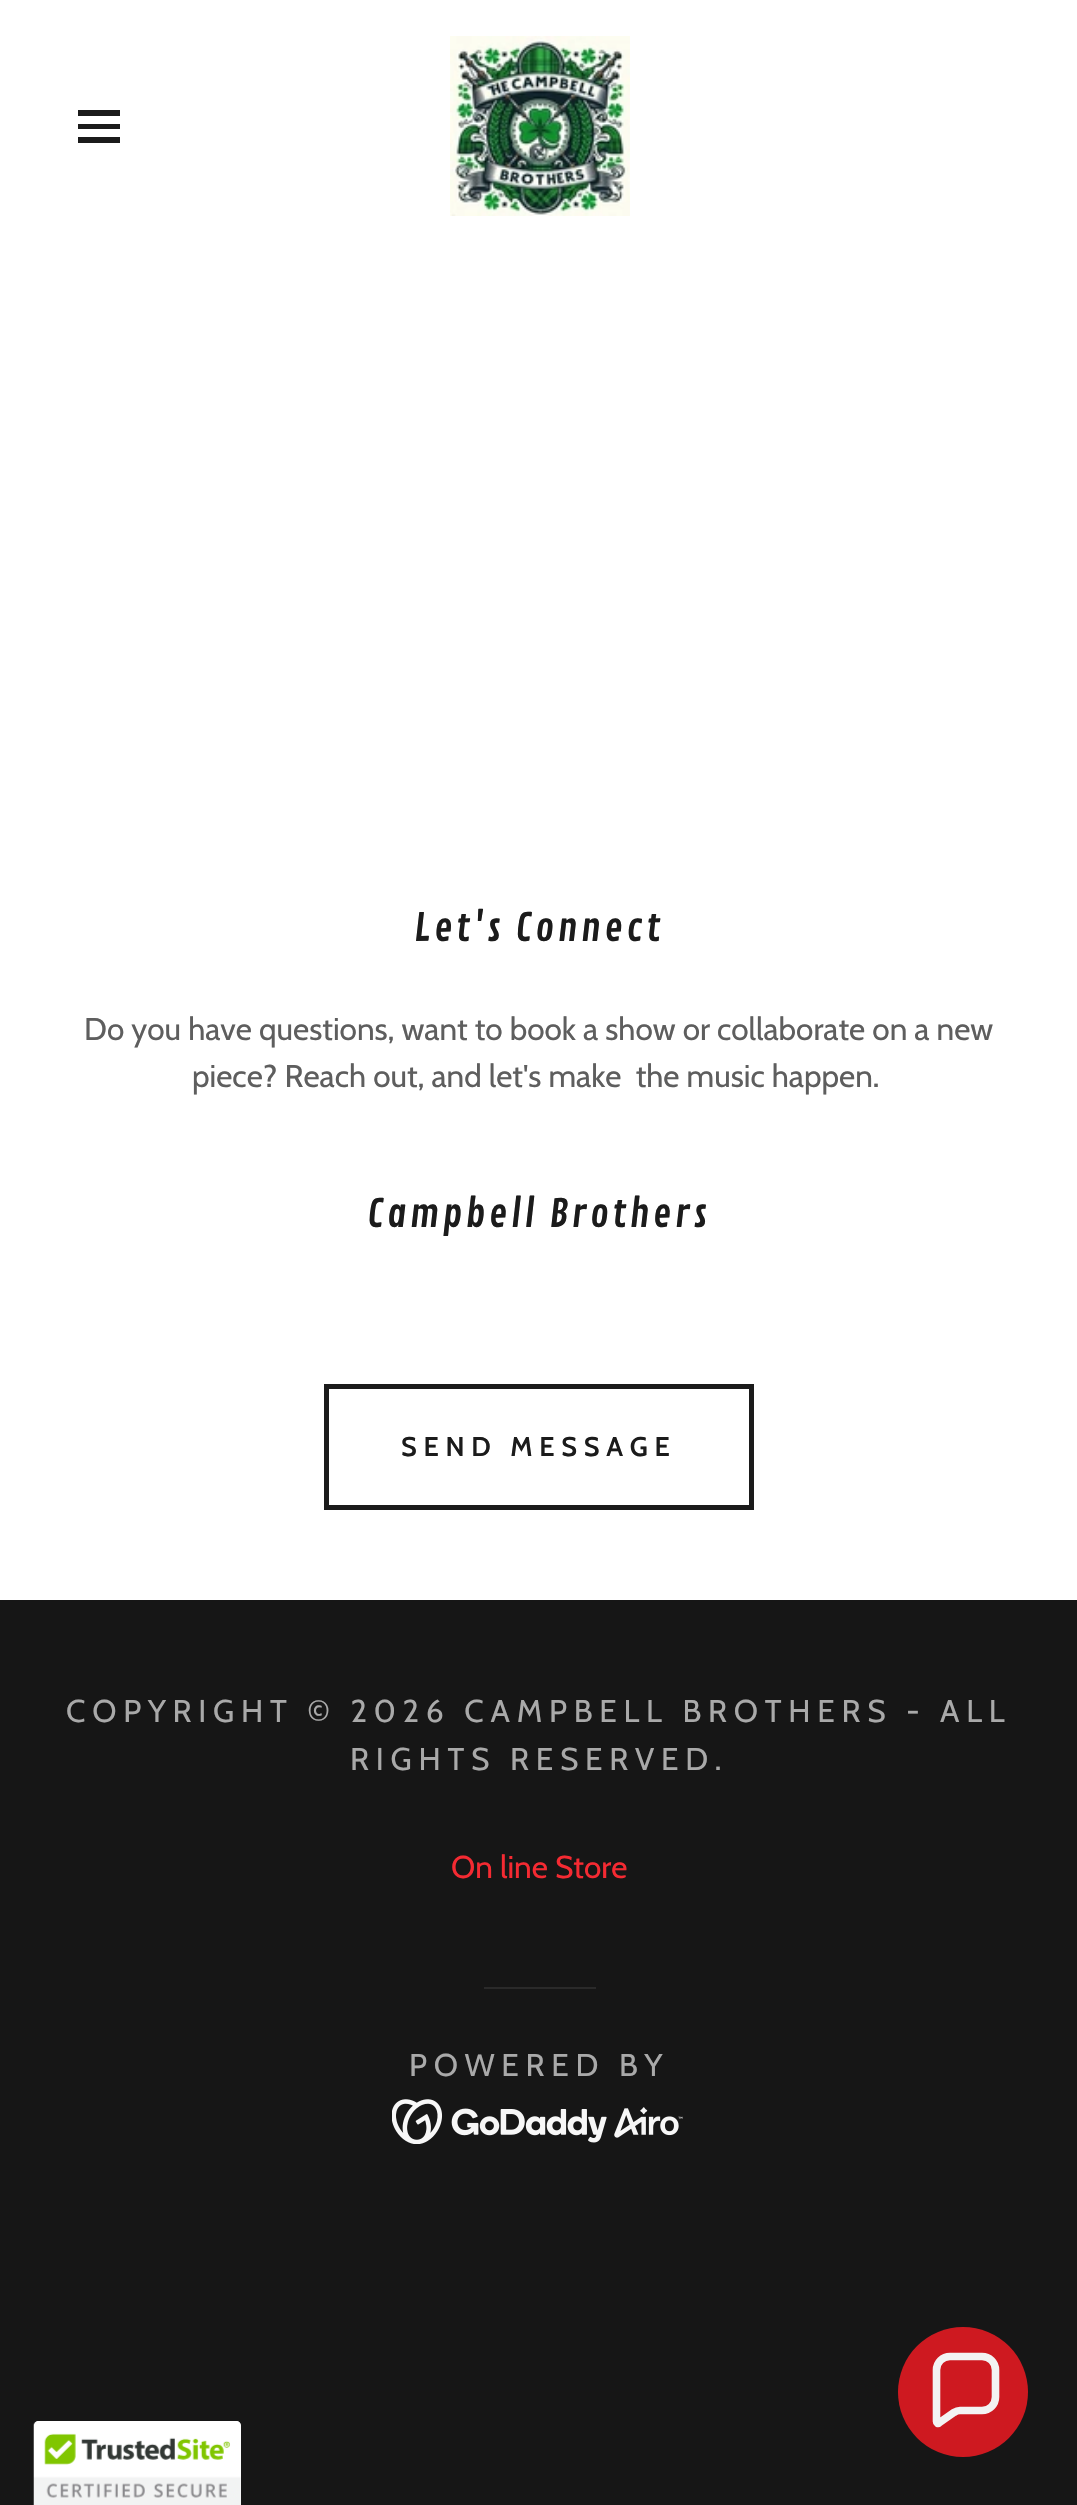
void draw(SkCanvas* canvas) {
	SkPaint paint;
	paint.setAntiAlias(true);
	auto spacedText = [&](const char* s, float x, float y, const SkFont& font, const SkPaint& ink, float letter, float word) {
		std::vector<SkGlyphID> glyphs(font.countText(s, strlen(s), SkTextEncoding::kUTF8));
		std::vector<float> xs(glyphs.size());
		font.textToGlyphs(s, strlen(s), SkTextEncoding::kUTF8, glyphs);
		font.getXPos(glyphs, xs, x);
		float extra = 0;
		for (size_t i = 0; i < glyphs.size(); i++) {
			xs[i] += extra;
			extra += letter + word * (glyphs[i] == font.unicharToGlyph(' '));
		}
		canvas->drawTextBlob(SkTextBlob::MakeFromPosHGlyphs(glyphs, xs, y, font), 0, 0, ink);
	};
	auto svgPath = [&](const char* data, bool evenOdd = false) {
		SkPath result = *SkParsePath::FromSVGString(data);
		if (evenOdd) result.setFillType(SkPathFillType::kEvenOdd);
		return result;
	};
	canvas->clear(0xff161616);
	paint.setColor(0xffffffff);
	canvas->drawRect(SkRect::MakeXYWH(0, 0, 1077, 1600), paint);
	paint.setColor(0xff1b1b1b);
	canvas->drawRect(SkRect::MakeXYWH(78, 110, 42, 6), paint);
	canvas->drawRect(SkRect::MakeXYWH(78, 124, 42, 5), paint);
	canvas->drawRect(SkRect::MakeXYWH(78, 137, 42, 6), paint);
	canvas->drawImageRect(SkImages::DeferredFromEncodedData(SkData::MakeFromFileName("img1.png")), SkRect::MakeXYWH(450, 36, 180, 180), SkSamplingOptions());
	SkFont f1(fontMgr->matchFamilyStyle("Contrail One", SkFontStyle::Normal()), 38.25);
	f1.setSubpixel(true);
	spacedText("Let's Connect", 414, 941, f1, paint, 3.4, 0);
	SkFont f2(fontMgr->matchFamilyStyle("Cabin", SkFontStyle::Normal()), 31.5);
	f2.setSubpixel(true);
	paint.setColor(0xff5e5e5e);
	canvas->drawString("Do you have questions, want to book a show or collaborate on a new", 84, 1040, f2, paint);
	canvas->drawString("piece? Reach out, and let's make  the music happen.", 192, 1087, f2, paint);
	paint.setColor(0xff1b1b1b);
	spacedText("Campbell Brothers", 367, 1227, f1, paint, 3.4, 0);
	paint.setStroke(true);
	paint.setStrokeWidth(5);
	canvas->drawRect(SkRect::MakeXYWH(326.5, 1386.5, 425, 121), paint);
	SkFont f3(fontMgr->matchFamilyStyle("Cabin", SkFontStyle(600, SkFontStyle::kNormal_Width, SkFontStyle::kUpright_Slant)), 27);
	f3.setSubpixel(true);
	paint.setStroke(false);
	spacedText("SEND MESSAGE", 401, 1456, f3, paint, 6.75, 0);
	paint.setColor(0xffa9a9a9);
	spacedText("COPYRIGHT © 2026 CAMPBELL BROTHERS - ALL", 66, 1722, f2, paint, 6.75, 0);
	spacedText("RIGHTS RESERVED.", 350, 1770, f2, paint, 6.75, 0);
	paint.setColor(0xfff52a32);
	canvas->drawString("On line Store", 451, 1878, f2, paint);
	paint.setColor(0xff2a2a2a);
	canvas->drawRect(SkRect::MakeXYWH(484, 1987, 112, 2), paint);
	paint.setColor(0xffa9a9a9);
	spacedText("POWERED BY", 409, 2076, f2, paint, 6.75, 0);
	canvas->drawImageRect(SkImages::DeferredFromEncodedData(SkData::MakeFromFileName("img2.png")), SkRect::MakeXYWH(392, 2099, 291, 45), SkSamplingOptions());
	paint.setColor(0xffffffff);
	canvas->drawPath(svgPath("M39 2421H236C239 2421 241 2423 241 2426V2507H34V2426C34 2423 36 2421 39 2421Z"), paint);
	canvas->drawImageRect(SkImages::DeferredFromEncodedData(SkData::MakeFromFileName("img3.png")), SkRect::MakeXYWH(33, 2421, 208, 84), SkSamplingOptions());
	paint.setColor(0xffce1920);
	canvas->drawCircle(963, 2392, 65, paint);
	paint.setStroke(true);
	paint.setStrokeWidth(7.6);
	paint.setColor(0xfff3f3f3);
	canvas->drawPath(svgPath("M982 2356.5H950C942.5 2356.5 936.5 2362.5 936.5 2370V2421.5C936.5 2423 938 2424 939 2423L954 2412.5C955.5 2411.5 957.5 2410.5 960 2410.5H982C989.5 2410.5 995.5 2404.5 995.5 2397V2370C995.5 2362.5 989.5 2356.5 982 2356.5Z"), paint);
}
